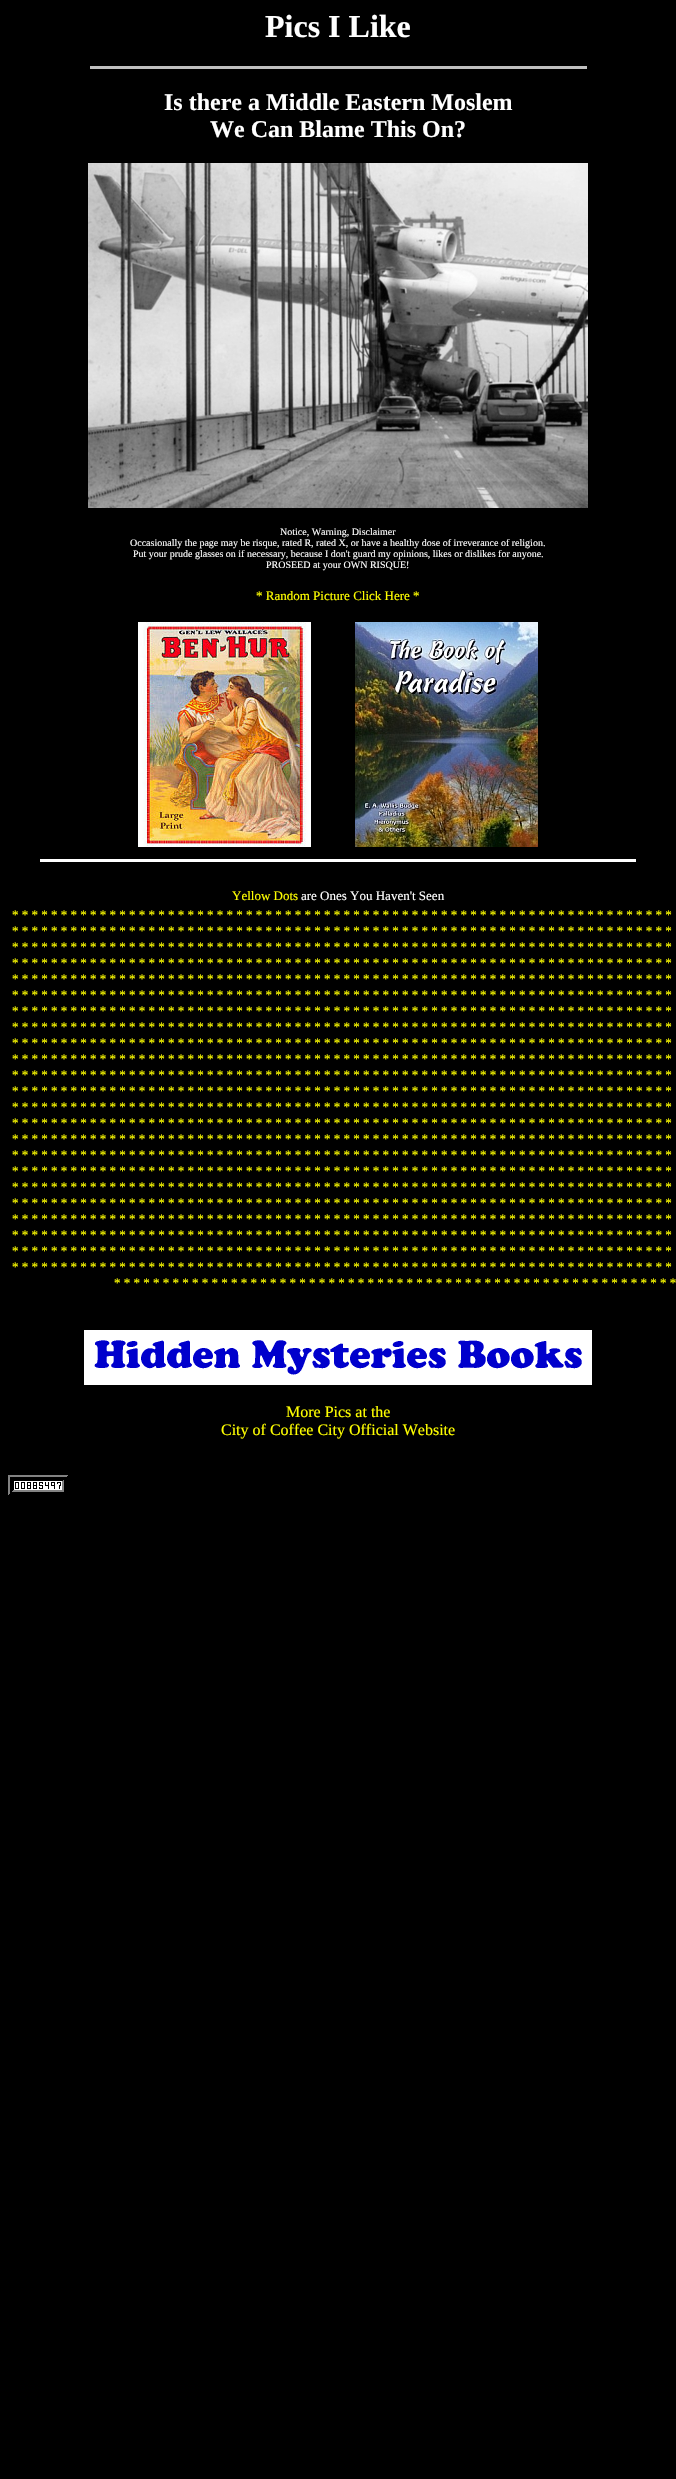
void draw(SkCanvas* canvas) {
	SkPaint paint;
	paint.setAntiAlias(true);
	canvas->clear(0xff000000);
	SkFont f1(fontMgr->matchFamilyStyle("Liberation Serif", SkFontStyle::Bold()), 32);
	f1.setSubpixel(true);
	paint.setColor(0xffffffff);
	canvas->drawString("Pics I Like", 265, 37, f1, paint);
	paint.setColor(0xffc0c0c0);
	canvas->drawRect(SkRect::MakeXYWH(90, 66, 497, 3), paint);
	SkFont f2(fontMgr->matchFamilyStyle("Liberation Serif", SkFontStyle::Bold()), 24);
	f2.setSubpixel(true);
	paint.setColor(0xffffffff);
	canvas->drawString("Is there a Middle Eastern Moslem", 164, 110, f2, paint);
	canvas->drawString("We Can Blame This On?", 210, 137, f2, paint);
	canvas->drawImageRect(SkImages::DeferredFromEncodedData(SkData::MakeFromFileName("img1.png")), SkRect::MakeXYWH(88, 163, 500, 345), SkSamplingOptions());
	SkFont f3(fontMgr->matchFamilyStyle("Liberation Serif", SkFontStyle::Normal()), 10);
	f3.setSubpixel(true);
	canvas->drawString("Notice, Warning, Disclaimer", 280, 535, f3, paint);
	canvas->drawString("Occasionally the page may be risque, rated R, rated X, or have a healthy dose of irreverance of religion.", 130, 546, f3, paint);
	canvas->drawString("Put your prude glasses on if necessary, because I don't guard my opinions, likes or dislikes for anyone.", 133, 557, f3, paint);
	canvas->drawString("PROSEED at your OWN RISQUE!", 266, 568, f3, paint);
	SkFont f4(fontMgr->matchFamilyStyle("Liberation Serif", SkFontStyle::Normal()), 13);
	f4.setSubpixel(true);
	paint.setColor(0xffffff00);
	canvas->drawString("* Random Picture Click Here *", 256, 600, f4, paint);
	canvas->drawImageRect(SkImages::DeferredFromEncodedData(SkData::MakeFromFileName("img2.png")), SkRect::MakeXYWH(138, 622, 173, 225), SkSamplingOptions());
	canvas->drawImageRect(SkImages::DeferredFromEncodedData(SkData::MakeFromFileName("img3.png")), SkRect::MakeXYWH(355, 622, 183, 225), SkSamplingOptions());
	paint.setColor(0xffffffff);
	canvas->drawRect(SkRect::MakeXYWH(40, 859, 596, 3), paint);
	paint.setColor(0xffffff00);
	canvas->drawString("Yellow Dots", 232, 900, f4, paint);
	paint.setColor(0xffffffff);
	canvas->drawString("are Ones You Haven't Seen", 301, 900, f4, paint);
	paint.setColor(0xffffff00);
	canvas->drawString("* * * * * * * * * * * * * * * * * * * * * * * * * * * * * * * * * * * * * * * * * * * * * * * * * * * * * * * * * * * * * * * * * * * *", 12, 919, f4, paint);
	canvas->drawString("* * * * * * * * * * * * * * * * * * * * * * * * * * * * * * * * * * * * * * * * * * * * * * * * * * * * * * * * * * * * * * * * * * * *", 12, 935, f4, paint);
	canvas->drawString("* * * * * * * * * * * * * * * * * * * * * * * * * * * * * * * * * * * * * * * * * * * * * * * * * * * * * * * * * * * * * * * * * * * *", 12, 951, f4, paint);
	canvas->drawString("* * * * * * * * * * * * * * * * * * * * * * * * * * * * * * * * * * * * * * * * * * * * * * * * * * * * * * * * * * * * * * * * * * * *", 12, 967, f4, paint);
	canvas->drawString("* * * * * * * * * * * * * * * * * * * * * * * * * * * * * * * * * * * * * * * * * * * * * * * * * * * * * * * * * * * * * * * * * * * *", 12, 983, f4, paint);
	canvas->drawString("* * * * * * * * * * * * * * * * * * * * * * * * * * * * * * * * * * * * * * * * * * * * * * * * * * * * * * * * * * * * * * * * * * * *", 12, 999, f4, paint);
	canvas->drawString("* * * * * * * * * * * * * * * * * * * * * * * * * * * * * * * * * * * * * * * * * * * * * * * * * * * * * * * * * * * * * * * * * * * *", 12, 1015, f4, paint);
	canvas->drawString("* * * * * * * * * * * * * * * * * * * * * * * * * * * * * * * * * * * * * * * * * * * * * * * * * * * * * * * * * * * * * * * * * * * *", 12, 1031, f4, paint);
	canvas->drawString("* * * * * * * * * * * * * * * * * * * * * * * * * * * * * * * * * * * * * * * * * * * * * * * * * * * * * * * * * * * * * * * * * * * *", 12, 1047, f4, paint);
	canvas->drawString("* * * * * * * * * * * * * * * * * * * * * * * * * * * * * * * * * * * * * * * * * * * * * * * * * * * * * * * * * * * * * * * * * * * *", 12, 1063, f4, paint);
	canvas->drawString("* * * * * * * * * * * * * * * * * * * * * * * * * * * * * * * * * * * * * * * * * * * * * * * * * * * * * * * * * * * * * * * * * * * *", 12, 1079, f4, paint);
	canvas->drawString("* * * * * * * * * * * * * * * * * * * * * * * * * * * * * * * * * * * * * * * * * * * * * * * * * * * * * * * * * * * * * * * * * * * *", 12, 1095, f4, paint);
	canvas->drawString("* * * * * * * * * * * * * * * * * * * * * * * * * * * * * * * * * * * * * * * * * * * * * * * * * * * * * * * * * * * * * * * * * * * *", 12, 1111, f4, paint);
	canvas->drawString("* * * * * * * * * * * * * * * * * * * * * * * * * * * * * * * * * * * * * * * * * * * * * * * * * * * * * * * * * * * * * * * * * * * *", 12, 1127, f4, paint);
	canvas->drawString("* * * * * * * * * * * * * * * * * * * * * * * * * * * * * * * * * * * * * * * * * * * * * * * * * * * * * * * * * * * * * * * * * * * *", 12, 1143, f4, paint);
	canvas->drawString("* * * * * * * * * * * * * * * * * * * * * * * * * * * * * * * * * * * * * * * * * * * * * * * * * * * * * * * * * * * * * * * * * * * *", 12, 1159, f4, paint);
	canvas->drawString("* * * * * * * * * * * * * * * * * * * * * * * * * * * * * * * * * * * * * * * * * * * * * * * * * * * * * * * * * * * * * * * * * * * *", 12, 1175, f4, paint);
	canvas->drawString("* * * * * * * * * * * * * * * * * * * * * * * * * * * * * * * * * * * * * * * * * * * * * * * * * * * * * * * * * * * * * * * * * * * *", 12, 1191, f4, paint);
	canvas->drawString("* * * * * * * * * * * * * * * * * * * * * * * * * * * * * * * * * * * * * * * * * * * * * * * * * * * * * * * * * * * * * * * * * * * *", 12, 1207, f4, paint);
	canvas->drawString("* * * * * * * * * * * * * * * * * * * * * * * * * * * * * * * * * * * * * * * * * * * * * * * * * * * * * * * * * * * * * * * * * * * *", 12, 1223, f4, paint);
	canvas->drawString("* * * * * * * * * * * * * * * * * * * * * * * * * * * * * * * * * * * * * * * * * * * * * * * * * * * * * * * * * * * * * * * * * * * *", 12, 1239, f4, paint);
	canvas->drawString("* * * * * * * * * * * * * * * * * * * * * * * * * * * * * * * * * * * * * * * * * * * * * * * * * * * * * * * * * * * * * * * * * * * *", 12, 1255, f4, paint);
	canvas->drawString("* * * * * * * * * * * * * * * * * * * * * * * * * * * * * * * * * * * * * * * * * * * * * * * * * * * * * * * * * * * * * * * * * * * *", 12, 1271, f4, paint);
	canvas->drawString("* * * * * * * * * * * * * * * * * * * * * * * * * * * * * * * * * * * * * * * * * * * * * * * * * * * * * * * * * *", 114, 1287, f4, paint);
	canvas->drawImageRect(SkImages::DeferredFromEncodedData(SkData::MakeFromFileName("img4.png")), SkRect::MakeXYWH(84, 1330, 508, 55), SkSamplingOptions());
	SkFont f5(fontMgr->matchFamilyStyle("Liberation Serif", SkFontStyle::Normal()), 16);
	f5.setSubpixel(true);
	canvas->drawString("More Pics at the", 286, 1417, f5, paint);
	canvas->drawString("City of Coffee City Official Website", 221, 1435, f5, paint);
	canvas->drawImageRect(SkImages::DeferredFromEncodedData(SkData::MakeFromFileName("img5.png")), SkRect::MakeXYWH(8, 1475, 60, 20), SkSamplingOptions());
}
